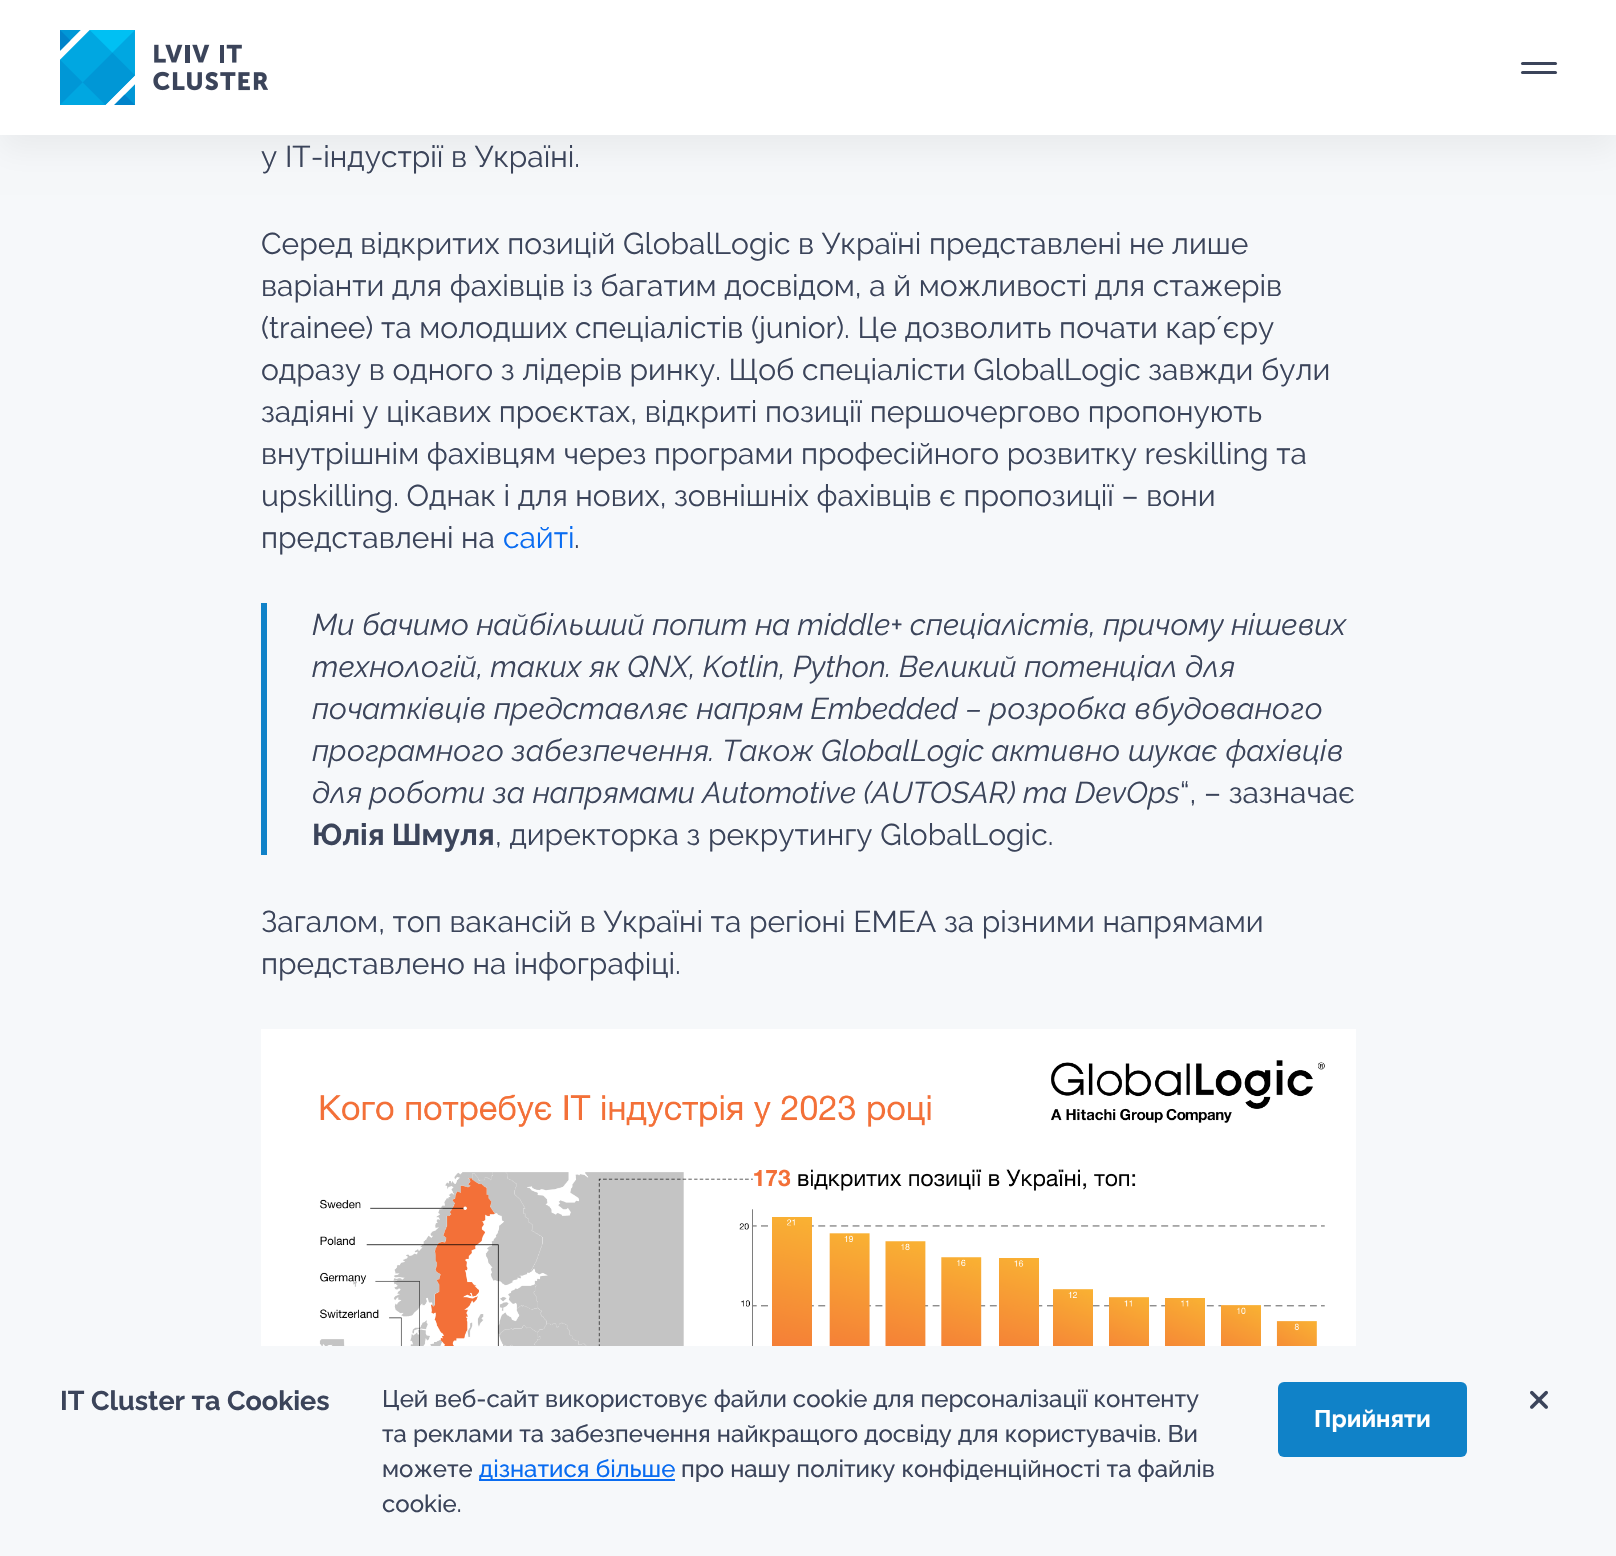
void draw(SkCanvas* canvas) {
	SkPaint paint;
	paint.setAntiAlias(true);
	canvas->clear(0xfff6f8fa);
	paint.setColor(0x0d000000);
	paint.setMaskFilter(SkMaskFilter::MakeBlur(kNormal_SkBlurStyle, 15));
	canvas->drawRect(SkRect::MakeXYWH(0, 15, 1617, 135), paint);
	paint.setMaskFilter(nullptr);
	paint.setColor(0xffffffff);
	canvas->drawRect(SkRect::MakeXYWH(0, 0, 1616, 135), paint);
	canvas->drawImageRect(SkImages::DeferredFromEncodedData(SkData::MakeFromFileName("img1.png")), SkRect::MakeXYWH(60, 30, 208, 75), SkSamplingOptions());
	paint.setColor(0xff3b445a);
	canvas->drawRoundRect(SkRect::MakeXYWH(1521, 62, 36, 3), 1.5, 1.5, paint);
	canvas->drawRoundRect(SkRect::MakeXYWH(1521, 71, 36, 3), 1.5, 1.5, paint);
	SkFont f1(fontMgr->matchFamilyStyle("Raleway", SkFontStyle::Normal()), 30);
	f1.setSubpixel(true);
	canvas->drawString("у IT-індустрії в Україні.", 261, 167, f1, paint);
	canvas->drawString("Серед відкритих позицій GlobalLogic в Україні представлені не лише", 261, 254, f1, paint);
	canvas->drawString("варіанти для фахівців із багатим досвідом, а й можливості для стажерів", 261, 296, f1, paint);
	canvas->drawString("(trainee) та молодших спеціалістів (junior). Це дозволить почати карʼєру", 261, 338, f1, paint);
	canvas->drawString("одразу в одного з лідерів ринку. Щоб спеціалісти GlobalLogic завжди були", 261, 380, f1, paint);
	canvas->drawString("задіяні у цікавих проєктах, відкриті позиції першочергово пропонують", 261, 422, f1, paint);
	canvas->drawString("внутрішнім фахівцям через програми професійного розвитку reskilling та", 261, 464, f1, paint);
	canvas->drawString("upskilling. Однак і для нових, зовнішніх фахівців є пропозиції – вони", 261, 506, f1, paint);
	canvas->drawString("представлені на", 261, 548, f1, paint);
	paint.setColor(0xff096cf1);
	canvas->drawString("сайті", 503, 548, f1, paint);
	paint.setColor(0xff3b445a);
	canvas->drawString(".", 574, 548, f1, paint);
	paint.setColor(0xff1082c8);
	canvas->drawRect(SkRect::MakeXYWH(261, 603, 6, 252), paint);
	SkFont f2(fontMgr->matchFamilyStyle("Raleway", SkFontStyle::Italic()), 30);
	f2.setSubpixel(true);
	paint.setColor(0xff3b445a);
	canvas->drawString("Ми бачимо найбільший попит на middle+ спеціалістів, причому нішевих", 312, 635, f2, paint);
	canvas->drawString("технологій, таких як QNX, Kotlin, Python. Великий потенціал для", 312, 677, f2, paint);
	canvas->drawString("початківців представляє напрям Embedded – розробка вбудованого", 312, 719, f2, paint);
	canvas->drawString("програмного забезпечення. Також GlobalLogic активно шукає фахівців", 312, 761, f2, paint);
	canvas->drawString("для роботи за напрямами Automotive (AUTOSAR) та DevOps", 312, 803, f2, paint);
	canvas->drawString("“, – зазначає", 1180, 803, f1, paint);
	SkFont f3(fontMgr->matchFamilyStyle("Raleway", SkFontStyle::Bold()), 30);
	f3.setSubpixel(true);
	canvas->drawString("Юлія Шмуля", 312, 845, f3, paint);
	canvas->drawString(", директорка з рекрутингу GlobalLogic.", 495, 845, f1, paint);
	canvas->drawString("Загалом, топ вакансій в Україні та регіоні EMEA за різними напрямами", 261, 932, f1, paint);
	canvas->drawString("представлено на інфографіці.", 261, 974, f1, paint);
	canvas->drawImageRect(SkImages::DeferredFromEncodedData(SkData::MakeFromFileName("img2.png")), SkRect::MakeXYWH(261, 1029, 1095, 317), SkSamplingOptions());
	SkFont f4(fontMgr->matchFamilyStyle("Raleway", SkFontStyle::Bold()), 27);
	f4.setSubpixel(true);
	canvas->drawString("IT Cluster та Cookies", 60, 1410, f4, paint);
	SkFont f5(fontMgr->matchFamilyStyle("Raleway", SkFontStyle(500, SkFontStyle::kNormal_Width, SkFontStyle::kUpright_Slant)), 24);
	f5.setSubpixel(true);
	canvas->drawString("Цей веб-сайт використовує файли cookie для персоналізації контенту", 382, 1407, f5, paint);
	canvas->drawString("та реклами та забезпечення найкращого досвіду для користувачів. Ви", 382, 1442, f5, paint);
	canvas->drawString("можете", 382, 1477, f5, paint);
	paint.setColor(0xff096cf1);
	canvas->drawRect(SkRect::MakeXYWH(479, 1479, 196, 2), paint);
	canvas->drawString("дізнатися більше", 479, 1477, f5, paint);
	paint.setColor(0xff3b445a);
	canvas->drawString("про нашу політику конфіденційності та файлів", 681, 1477, f5, paint);
	canvas->drawString("cookie.", 382, 1512, f5, paint);
	canvas->drawImageRect(SkImages::DeferredFromEncodedData(SkData::MakeFromFileName("img3.png")), SkRect::MakeXYWH(1530, 1390, 18, 19), SkSamplingOptions());
	paint.setColor(0xff1082c8);
	canvas->drawRoundRect(SkRect::MakeXYWH(1278, 1382, 189, 75), 6, 6, paint);
	SkFont f6(fontMgr->matchFamilyStyle("Raleway", SkFontStyle::Bold()), 24);
	f6.setSubpixel(true);
	paint.setColor(0xffffffff);
	canvas->drawString("Прийняти", 1314, 1427, f6, paint);
}
